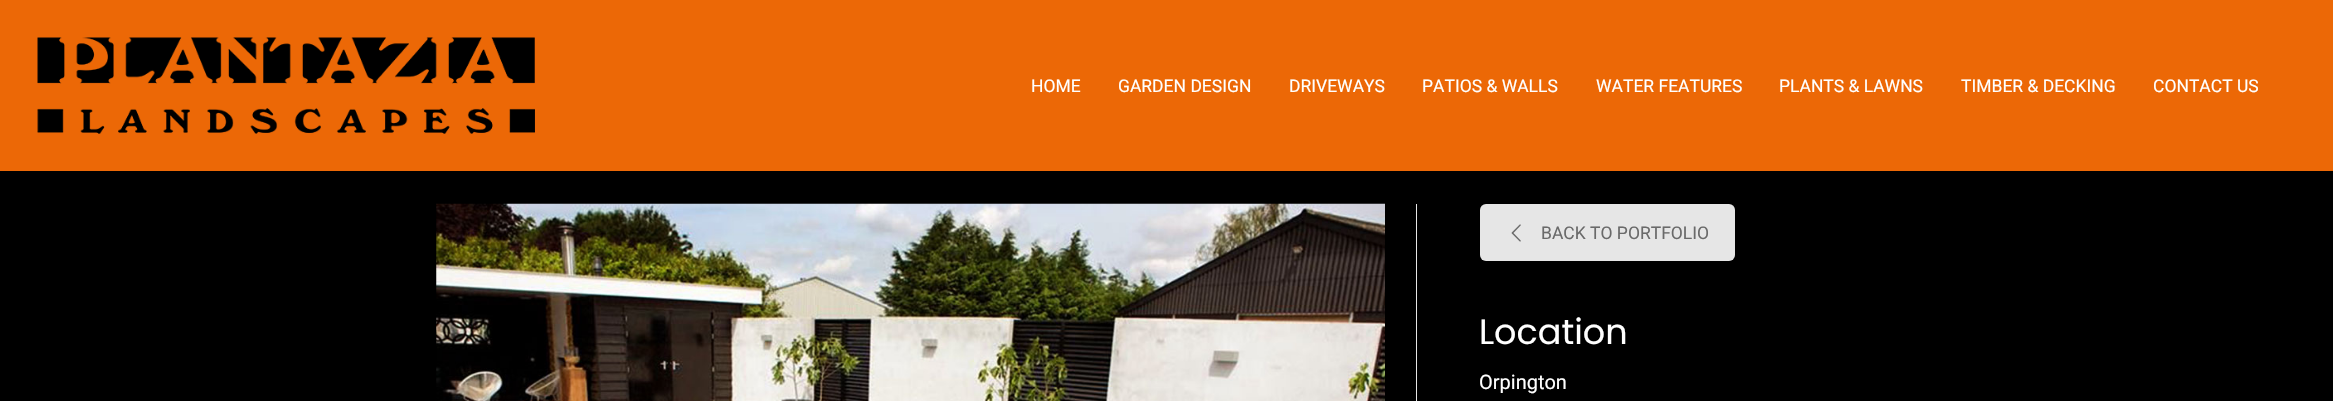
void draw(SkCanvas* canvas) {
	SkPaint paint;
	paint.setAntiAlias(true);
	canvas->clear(0xff000000);
	paint.setColor(0xffec6806);
	canvas->drawRect(SkRect::MakeXYWH(0, 0, 2333, 171), paint);
	canvas->drawImageRect(SkImages::DeferredFromEncodedData(SkData::MakeFromFileName("img1.png")), SkRect::MakeXYWH(37, 37, 498, 97), SkSamplingOptions());
	SkFont f1(fontMgr->matchFamilyStyle("Roboto", SkFontStyle::Normal()), 17.5);
	f1.setSubpixel(true);
	paint.setColor(0xffffffff);
	canvas->drawString("HOME", 1031, 92, f1, paint);
	canvas->drawString("GARDEN DESIGN", 1118, 92, f1, paint);
	canvas->drawString("DRIVEWAYS", 1289, 92, f1, paint);
	canvas->drawString("PATIOS & WALLS", 1422, 92, f1, paint);
	canvas->drawString("WATER FEATURES", 1596, 92, f1, paint);
	canvas->drawString("PLANTS & LAWNS", 1779, 92, f1, paint);
	canvas->drawString("TIMBER & DECKING", 1961, 92, f1, paint);
	canvas->drawString("CONTACT US", 2153, 92, f1, paint);
	paint.setColor(0xffe6e6e6);
	canvas->drawRect(SkRect::MakeXYWH(1416, 204, 1, 197), paint);
	canvas->drawImageRect(SkImages::DeferredFromEncodedData(SkData::MakeFromFileName("img2.png")), SkRect::MakeXYWH(436, 203, 949, 198), SkSamplingOptions());
	canvas->drawRoundRect(SkRect::MakeXYWH(1480, 204, 255, 57), 6, 6, paint);
	canvas->drawImageRect(SkImages::DeferredFromEncodedData(SkData::MakeFromFileName("img3.png")), SkRect::MakeXYWH(1511, 224, 10, 18), SkSamplingOptions());
	paint.setColor(0xff6a6a6a);
	canvas->drawString("BACK TO PORTFOLIO", 1541, 239, f1, paint);
	SkFont f2(fontMgr->matchFamilyStyle("Poppins", SkFontStyle::Normal()), 35);
	f2.setSubpixel(true);
	paint.setColor(0xffffffff);
	canvas->drawString("Location", 1479, 344, f2, paint);
	SkFont f3(fontMgr->matchFamilyStyle("Roboto", SkFontStyle::Normal()), 20);
	f3.setSubpixel(true);
	canvas->drawString("Orpington", 1479, 389, f3, paint);
}
